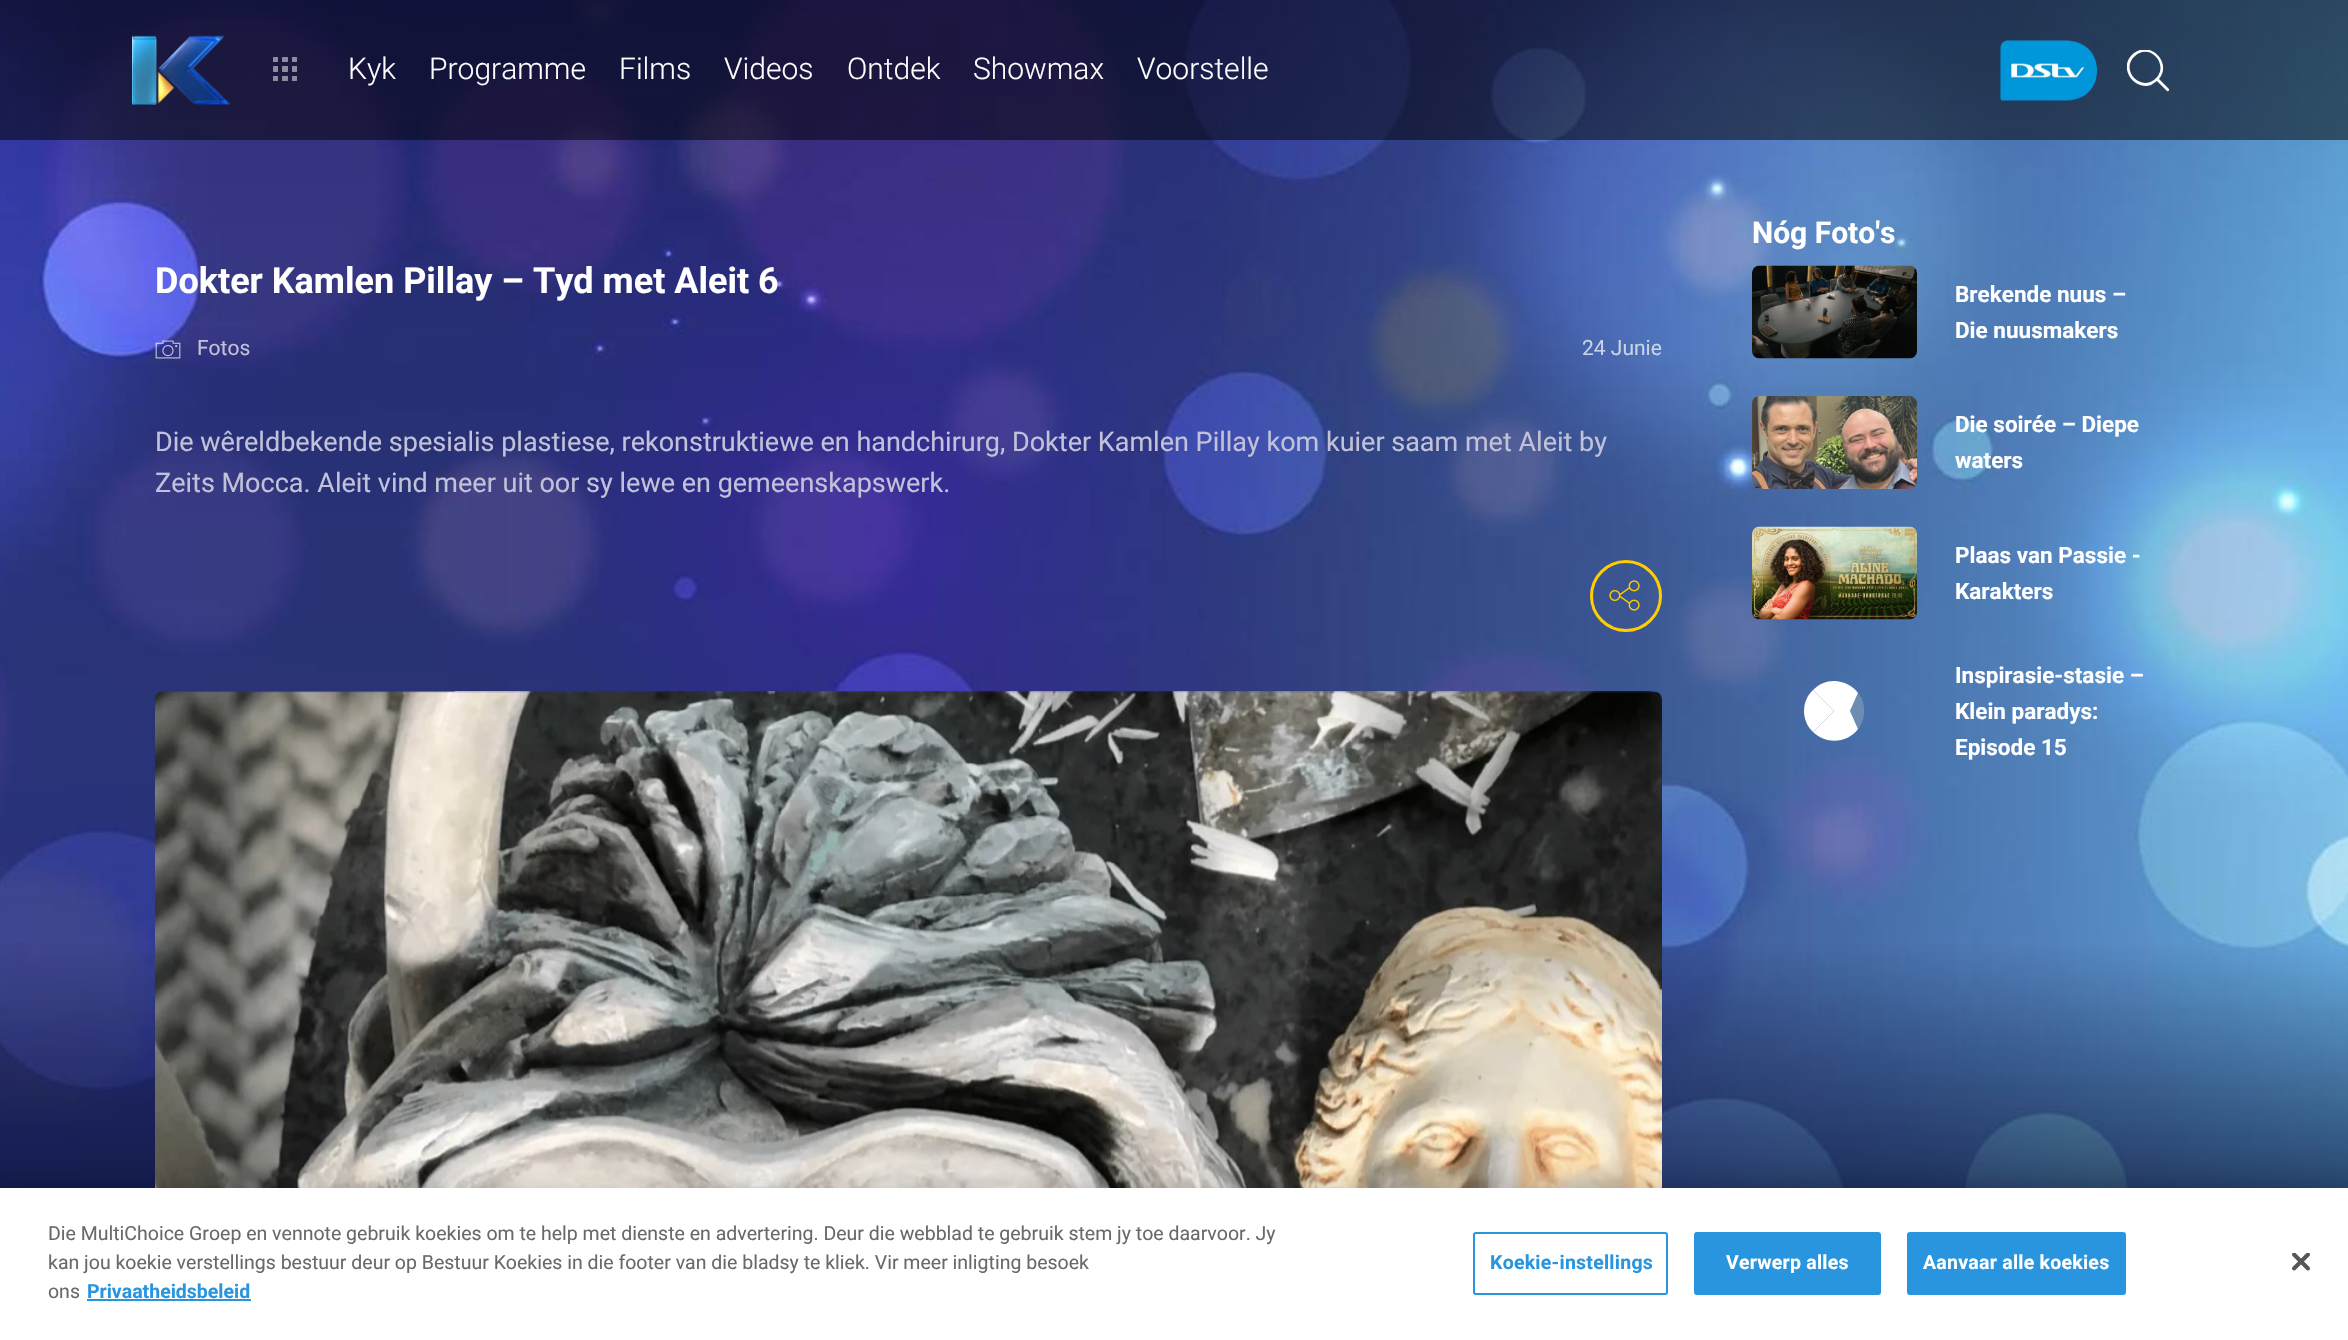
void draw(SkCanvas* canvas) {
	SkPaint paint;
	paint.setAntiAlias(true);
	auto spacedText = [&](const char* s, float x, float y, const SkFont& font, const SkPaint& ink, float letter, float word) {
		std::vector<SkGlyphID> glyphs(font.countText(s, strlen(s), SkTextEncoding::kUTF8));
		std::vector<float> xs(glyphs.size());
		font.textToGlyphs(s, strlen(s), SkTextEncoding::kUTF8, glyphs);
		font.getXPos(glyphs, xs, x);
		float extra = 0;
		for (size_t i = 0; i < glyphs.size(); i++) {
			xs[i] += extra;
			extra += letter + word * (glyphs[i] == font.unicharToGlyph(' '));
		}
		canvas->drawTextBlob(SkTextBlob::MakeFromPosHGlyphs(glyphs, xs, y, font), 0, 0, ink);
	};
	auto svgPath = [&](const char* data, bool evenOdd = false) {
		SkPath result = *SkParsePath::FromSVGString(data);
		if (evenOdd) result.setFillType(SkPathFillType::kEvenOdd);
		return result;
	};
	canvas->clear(0xff081031);
	canvas->drawImageRect(SkImages::DeferredFromEncodedData(SkData::MakeFromFileName("img1.png")), SkRect::MakeXYWH(0, 0, 2348, 1188), SkSamplingOptions());
	paint.setColor(0x80000000);
	canvas->drawRect(SkRect::MakeXYWH(0, 0, 2348, 140), paint);
	canvas->drawImageRect(SkImages::DeferredFromEncodedData(SkData::MakeFromFileName("img2.png")), SkRect::MakeXYWH(132, 35, 98, 70), SkSamplingOptions());
	canvas->drawImageRect(SkImages::DeferredFromEncodedData(SkData::MakeFromFileName("img3.png")), SkRect::MakeXYWH(273, 57, 24, 24), SkSamplingOptions());
	SkFont f1(fontMgr->matchFamilyStyle("Roboto", SkFontStyle(300, SkFontStyle::kNormal_Width, SkFontStyle::kUpright_Slant)), 30);
	f1.setSubpixel(true);
	paint.setColor(0xffffffff);
	canvas->drawString("Kyk", 348, 79, f1, paint);
	canvas->drawString("Programme", 429, 79, f1, paint);
	canvas->drawString("Films", 619, 79, f1, paint);
	canvas->drawString("Videos", 724, 79, f1, paint);
	canvas->drawString("Ontdek", 847, 79, f1, paint);
	canvas->drawString("Showmax", 973, 79, f1, paint);
	canvas->drawString("Voorstelle", 1137, 79, f1, paint);
	canvas->drawImageRect(SkImages::DeferredFromEncodedData(SkData::MakeFromFileName("img4.png")), SkRect::MakeXYWH(2000, 40, 97, 61), SkSamplingOptions());
	canvas->save();
	canvas->clipRect(SkRect::MakeXYWH(2127, 50, 42, 42));
	canvas->drawPath(svgPath("M2169 89L2159 79C2172 64 2152 40 2134 53C2117 66 2133 91 2151 85L2157 81L2167 91C2169 92 2169 90 2169 89ZM2154 80C2139 91 2120 69 2135 56C2151 42 2171 67 2154 80Z"), paint);
	canvas->restore();
	SkFont f2(fontMgr->matchFamilyStyle("Roboto", SkFontStyle::Bold()), 36);
	f2.setSubpixel(true);
	canvas->drawString("Dokter Kamlen Pillay – Tyd met Aleit 6", 155, 293, f2, paint);
	canvas->drawImageRect(SkImages::DeferredFromEncodedData(SkData::MakeFromFileName("img5.png")), SkRect::MakeXYWH(155, 340, 26, 19), SkSamplingOptions());
	SkFont f3(fontMgr->matchFamilyStyle("Roboto", SkFontStyle::Normal()), 21);
	f3.setSubpixel(true);
	paint.setColor(0xffc1c2d9);
	canvas->drawString("Fotos", 197, 355, f3, paint);
	paint.setColor(0xffc9d3e8);
	canvas->drawString("24 Junie", 1582, 355, f3, paint);
	SkFont f4(fontMgr->matchFamilyStyle("Roboto", SkFontStyle::Normal()), 27);
	f4.setSubpixel(true);
	paint.setColor(0xffc1c2d9);
	canvas->drawString("Die wêreldbekende spesialis plastiese, rekonstruktiewe en handchirurg, Dokter Kamlen Pillay kom kuier saam met Aleit by", 155, 451, f4, paint);
	canvas->drawString("Zeits Mocca. Aleit vind meer uit oor sy lewe en gemeenskapswerk.", 155, 492, f4, paint);
	paint.setStroke(true);
	paint.setStrokeWidth(3);
	paint.setColor(0xffffcd00);
	canvas->drawCircle(1626, 596, 34.5, paint);
	canvas->drawImageRect(SkImages::DeferredFromEncodedData(SkData::MakeFromFileName("img6.png")), SkRect::MakeXYWH(1609, 580, 31, 31), SkSamplingOptions());
	canvas->drawImageRect(SkImages::DeferredFromEncodedData(SkData::MakeFromFileName("img7.png")), SkRect::MakeXYWH(155, 691, 1507, 497), SkSamplingOptions());
	SkFont f5(fontMgr->matchFamilyStyle("Roboto", SkFontStyle::Bold()), 30);
	f5.setSubpixel(true);
	paint.setStroke(false);
	paint.setColor(0xffffffff);
	canvas->drawString("Nóg Foto's", 1752, 243, f5, paint);
	canvas->drawImageRect(SkImages::DeferredFromEncodedData(SkData::MakeFromFileName("img8.png")), SkRect::MakeXYWH(1752, 265, 165, 94), SkSamplingOptions());
	SkFont f6(fontMgr->matchFamilyStyle("Roboto", SkFontStyle::Bold()), 22.5);
	f6.setSubpixel(true);
	canvas->drawString("Brekende nuus –", 1955, 302, f6, paint);
	canvas->drawString("Die nuusmakers", 1955, 338, f6, paint);
	canvas->drawImageRect(SkImages::DeferredFromEncodedData(SkData::MakeFromFileName("img9.png")), SkRect::MakeXYWH(1752, 396, 165, 93), SkSamplingOptions());
	canvas->drawString("Die soirée – Diepe", 1955, 432, f6, paint);
	canvas->drawString("waters", 1955, 468, f6, paint);
	canvas->drawImageRect(SkImages::DeferredFromEncodedData(SkData::MakeFromFileName("img10.png")), SkRect::MakeXYWH(1752, 526, 165, 94), SkSamplingOptions());
	canvas->drawString("Plaas van Passie -", 1955, 563, f6, paint);
	canvas->drawString("Karakters", 1955, 599, f6, paint);
	canvas->drawPath(svgPath("M1834 681C1844 681 1853 686 1858 693L1850 711H1834L1813 690C1819 684 1826 681 1834 681Z"), paint);
	paint.setColor(0x66a2b6bf);
	canvas->drawPath(svgPath("M1858.5 693L1849.5 711L1858.5 729C1866 718.5 1866 703.5 1858.5 693Z"), paint);
	paint.setColor(0xffffffff);
	canvas->drawPath(svgPath("M1858 729L1850 711H1834L1813 732C1826 745 1848 743 1858 729Z"), paint);
	canvas->drawPath(svgPath("M1813 732L1834 711L1813 690C1801 701 1801 721 1813 732Z"), paint);
	canvas->drawString("Inspirasie-stasie –", 1955, 683, f6, paint);
	canvas->drawString("Klein paradys:", 1955, 719, f6, paint);
	canvas->drawString("Episode 15", 1955, 755, f6, paint);
	paint.setColor(0x33000000);
	paint.setMaskFilter(SkMaskFilter::MakeBlur(kNormal_SkBlurStyle, 13.5));
	canvas->drawRect(SkRect::MakeXYWH(0, 1188, 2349, 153), paint);
	paint.setMaskFilter(nullptr);
	paint.setColor(0xffffffff);
	canvas->drawRect(SkRect::MakeXYWH(0, 1188, 2348, 152), paint);
	SkFont f7(fontMgr->matchFamilyStyle("Roboto", SkFontStyle::Normal()), 19.5);
	f7.setSubpixel(true);
	paint.setColor(0xff696969);
	canvas->drawString("Die MultiChoice Groep en vennote gebruik koekies om te help met dienste en advertering. Deur die webblad te gebruik stem jy toe daarvoor. Jy", 48, 1240, f7, paint);
	canvas->drawString("kan jou koekie verstellings bestuur deur op Bestuur Koekies in die footer van die bladsy te kliek. Vir meer inligting besoek", 48, 1269, f7, paint);
	canvas->drawString("ons", 48, 1298, f7, paint);
	SkFont f8(fontMgr->matchFamilyStyle("Roboto", SkFontStyle::Bold()), 19.5);
	f8.setSubpixel(true);
	paint.setColor(0xff2895de);
	canvas->drawString("Privaatheidsbeleid", 87, 1298, f8, paint);
	canvas->drawRect(SkRect::MakeXYWH(87, 1299, 164, 2), paint);
	paint.setStroke(true);
	paint.setStrokeWidth(2);
	canvas->drawRoundRect(SkRect::MakeXYWH(1474, 1233, 193, 61), 2, 2, paint);
	paint.setStroke(false);
	spacedText("Koekie-instellings", 1490, 1269, f8, paint, 0.25, 0);
	canvas->drawRoundRect(SkRect::MakeXYWH(1695, 1233, 185, 61), 2, 2, paint);
	paint.setStroke(true);
	canvas->drawRoundRect(SkRect::MakeXYWH(1695, 1233, 185, 61), 2, 2, paint);
	paint.setStroke(false);
	paint.setColor(0xffffffff);
	spacedText("Verwerp alles", 1726, 1269, f8, paint, 0.25, 0);
	paint.setColor(0xff2895de);
	canvas->drawRoundRect(SkRect::MakeXYWH(1908, 1233, 217, 61), 2, 2, paint);
	paint.setStroke(true);
	canvas->drawRoundRect(SkRect::MakeXYWH(1908, 1233, 217, 61), 2, 2, paint);
	paint.setStroke(false);
	paint.setColor(0xffffffff);
	spacedText("Aanvaar alle koekies", 1923, 1269, f8, paint, 0.25, 0);
	canvas->drawImageRect(SkImages::DeferredFromEncodedData(SkData::MakeFromFileName("img11.png")), SkRect::MakeXYWH(2292, 1253, 18, 18), SkSamplingOptions());
}
